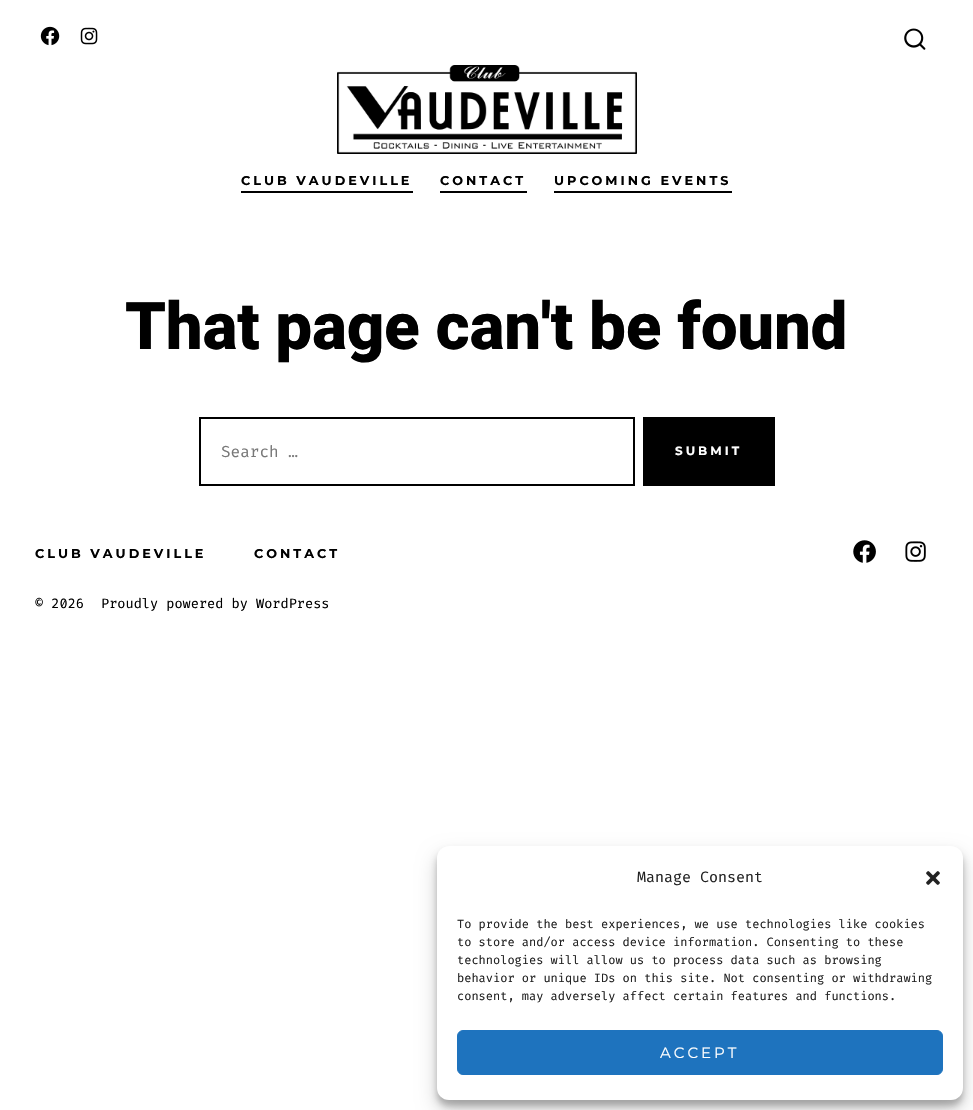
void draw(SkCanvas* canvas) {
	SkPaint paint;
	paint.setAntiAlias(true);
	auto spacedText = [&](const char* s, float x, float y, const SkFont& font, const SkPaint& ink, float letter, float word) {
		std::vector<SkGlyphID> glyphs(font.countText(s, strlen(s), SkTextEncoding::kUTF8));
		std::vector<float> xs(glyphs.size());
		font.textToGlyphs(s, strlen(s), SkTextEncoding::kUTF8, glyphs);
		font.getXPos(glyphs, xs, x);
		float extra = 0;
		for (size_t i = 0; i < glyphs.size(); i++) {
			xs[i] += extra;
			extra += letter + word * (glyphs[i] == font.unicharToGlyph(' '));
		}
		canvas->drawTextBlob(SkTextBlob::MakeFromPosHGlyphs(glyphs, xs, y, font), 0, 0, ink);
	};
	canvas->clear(0xffffffff);
	canvas->drawImageRect(SkImages::DeferredFromEncodedData(SkData::MakeFromFileName("img1.png")), SkRect::MakeXYWH(40, 26, 20, 20), SkSamplingOptions());
	canvas->drawImageRect(SkImages::DeferredFromEncodedData(SkData::MakeFromFileName("img2.png")), SkRect::MakeXYWH(80, 27, 18, 18), SkSamplingOptions());
	canvas->drawImageRect(SkImages::DeferredFromEncodedData(SkData::MakeFromFileName("img3.png")), SkRect::MakeXYWH(904, 28, 22, 22), SkSamplingOptions());
	canvas->drawImageRect(SkImages::DeferredFromEncodedData(SkData::MakeFromFileName("img4.png")), SkRect::MakeXYWH(337, 65, 300, 89), SkSamplingOptions());
	SkFont f1(fontMgr->matchFamilyStyle("Montserrat", SkFontStyle::Bold()), 12.75);
	f1.setSubpixel(true);
	paint.setColor(0xff000000);
	spacedText("CLUB VAUDEVILLE", 241, 185, f1, paint, 3, 0);
	canvas->drawRect(SkRect::MakeXYWH(241, 191, 172, 2), paint);
	spacedText("CONTACT", 440, 185, f1, paint, 3, 0);
	canvas->drawRect(SkRect::MakeXYWH(440, 191, 87, 2), paint);
	spacedText("UPCOMING EVENTS", 554, 185, f1, paint, 3, 0);
	canvas->drawRect(SkRect::MakeXYWH(554, 191, 178, 2), paint);
	SkFont f2(fontMgr->matchFamilyStyle("Heebo", SkFontStyle(800, SkFontStyle::kNormal_Width, SkFontStyle::kUpright_Slant)), 65.6);
	f2.setSubpixel(true);
	spacedText("That page can't be found", 125, 349, f2, paint, -0.3, 0);
	paint.setStroke(true);
	paint.setStrokeWidth(2);
	canvas->drawRect(SkRect::MakeXYWH(200, 418, 434, 67), paint);
	SkFont f3(fontMgr->matchFamilyStyle("Fira Code", SkFontStyle::Normal()), 16);
	f3.setSubpixel(true);
	paint.setStroke(false);
	paint.setColor(0xff787878);
	canvas->drawString("Search …", 221, 457, f3, paint);
	paint.setColor(0xff000000);
	canvas->drawRect(SkRect::MakeXYWH(643, 417, 132, 69), paint);
	SkFont f4(fontMgr->matchFamilyStyle("Montserrat", SkFontStyle::Bold()), 12);
	f4.setSubpixel(true);
	paint.setColor(0xffffffff);
	spacedText("SUBMIT", 675, 455, f4, paint, 3, 0);
	paint.setColor(0xff000000);
	spacedText("CLUB VAUDEVILLE", 35, 558, f1, paint, 3, 0);
	spacedText("CONTACT", 254, 558, f1, paint, 3, 0);
	canvas->drawImageRect(SkImages::DeferredFromEncodedData(SkData::MakeFromFileName("img5.png")), SkRect::MakeXYWH(853, 540, 23, 23), SkSamplingOptions());
	canvas->drawImageRect(SkImages::DeferredFromEncodedData(SkData::MakeFromFileName("img6.png")), SkRect::MakeXYWH(905, 541, 21, 21), SkSamplingOptions());
	SkFont f5(fontMgr->matchFamilyStyle("Fira Code", SkFontStyle::Normal()), 13.6);
	f5.setSubpixel(true);
	canvas->drawString("© 2026", 35, 608, f5, paint);
	canvas->drawString("Proudly powered by WordPress", 101, 608, f5, paint);
	paint.setColor(0x3b000000);
	paint.setMaskFilter(SkMaskFilter::MakeBlur(kNormal_SkBlurStyle, 3));
	canvas->drawRoundRect(SkRect::MakeXYWH(437, 852, 526, 254), 12, 12, paint);
	paint.setMaskFilter(nullptr);
	paint.setColor(0x30000000);
	paint.setMaskFilter(SkMaskFilter::MakeBlur(kNormal_SkBlurStyle, 10));
	canvas->drawRoundRect(SkRect::MakeXYWH(437, 856, 526, 254), 12, 12, paint);
	paint.setMaskFilter(nullptr);
	paint.setColor(0xffffffff);
	canvas->drawRoundRect(SkRect::MakeXYWH(437, 846, 526, 254), 12, 12, paint);
	SkFont f6(fontMgr->matchFamilyStyle("Fira Code", SkFontStyle::Normal()), 15);
	f6.setSubpixel(true);
	paint.setColor(0xff222222);
	canvas->drawString("Manage Consent", 637, 882, f6, paint);
	canvas->drawImageRect(SkImages::DeferredFromEncodedData(SkData::MakeFromFileName("img7.png")), SkRect::MakeXYWH(926, 871, 14, 14), SkSamplingOptions());
	SkFont f7(fontMgr->matchFamilyStyle("Fira Code", SkFontStyle::Normal()), 12);
	f7.setSubpixel(true);
	canvas->drawString("To provide the best experiences, we use technologies like cookies", 457, 928, f7, paint);
	canvas->drawString("to store and/or access device information. Consenting to these", 457, 946, f7, paint);
	canvas->drawString("technologies will allow us to process data such as browsing", 457, 964, f7, paint);
	canvas->drawString("behavior or unique IDs on this site. Not consenting or withdrawing", 457, 982, f7, paint);
	canvas->drawString("consent, may adversely affect certain features and functions.", 457, 1000, f7, paint);
	paint.setColor(0xff1e73be);
	canvas->drawRoundRect(SkRect::MakeXYWH(457.5, 1030.5, 485, 44), 5.5, 5.5, paint);
	paint.setStroke(true);
	paint.setStrokeWidth(1);
	canvas->drawRoundRect(SkRect::MakeXYWH(457.5, 1030.5, 485, 44), 5.5, 5.5, paint);
	SkFont f8(fontMgr->matchFamilyStyle("Montserrat", SkFontStyle::Normal()), 15);
	f8.setSubpixel(true);
	paint.setStroke(false);
	paint.setColor(0xffffffff);
	spacedText("ACCEPT", 660, 1058, f8, paint, 3, 0);
}
